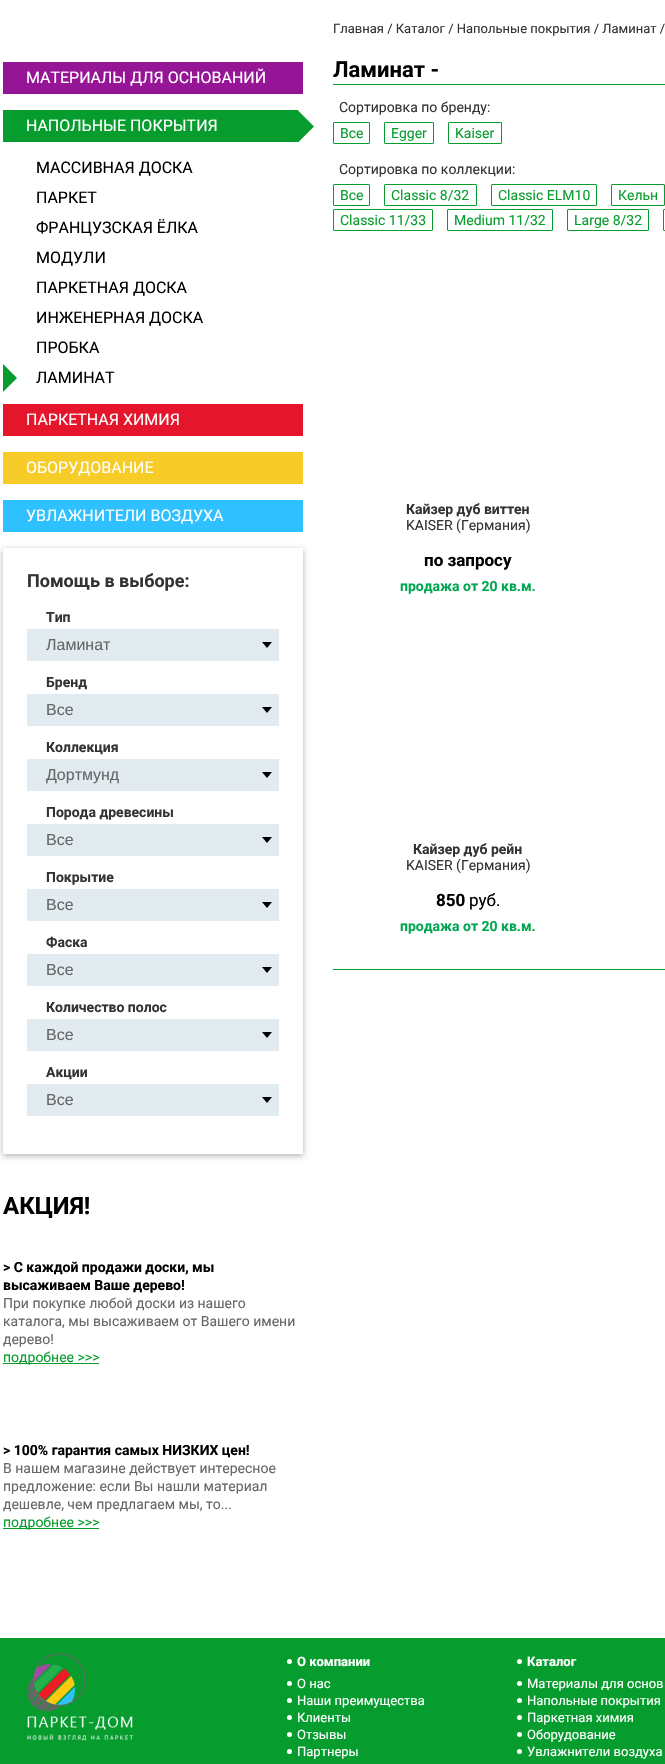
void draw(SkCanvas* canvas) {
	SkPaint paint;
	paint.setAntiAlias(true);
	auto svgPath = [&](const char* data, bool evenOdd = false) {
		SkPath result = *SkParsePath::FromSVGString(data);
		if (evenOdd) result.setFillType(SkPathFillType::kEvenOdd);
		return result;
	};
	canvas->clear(0xffffffff);
	paint.setColor(0xff961597);
	canvas->drawRect(SkRect::MakeXYWH(3, 62, 300, 32), paint);
	SkFont f1(fontMgr->matchFamilyStyle("Roboto", SkFontStyle::Normal()), 16);
	f1.setSubpixel(true);
	paint.setColor(0xffffffff);
	canvas->drawString("МАТЕРИАЛЫ ДЛЯ ОСНОВАНИЙ", 26, 83, f1, paint);
	paint.setColor(0xff079c2e);
	canvas->drawRect(SkRect::MakeXYWH(3, 110, 295, 32), paint);
	paint.setColor(0xffffffff);
	canvas->drawString("НАПОЛЬНЫЕ ПОКРЫТИЯ", 26, 131, f1, paint);
	canvas->save();
	canvas->clipRect(SkRect::MakeXYWH(295, 110, 20, 32));
	paint.setColor(0xff079c2e);
	canvas->drawPath(svgPath("M296.5 109L314 126.5L296.5 144L279 126.5Z"), paint);
	canvas->restore();
	paint.setColor(0xff000000);
	canvas->drawString("МАССИВНАЯ ДОСКА", 36, 173, f1, paint);
	canvas->drawString("ПАРКЕТ", 36, 203, f1, paint);
	canvas->drawString("ФРАНЦУЗСКАЯ ЁЛКА", 36, 233, f1, paint);
	canvas->drawString("МОДУЛИ", 36, 263, f1, paint);
	canvas->drawString("ПАРКЕТНАЯ ДОСКА", 36, 293, f1, paint);
	canvas->drawString("ИНЖЕНЕРНАЯ ДОСКА", 36, 323, f1, paint);
	canvas->drawString("ПРОБКА", 36, 353, f1, paint);
	paint.setColor(0xff079c2e);
	canvas->drawPath(svgPath("M3 392V364L17 378Z"), paint);
	paint.setColor(0xff000000);
	canvas->drawString("ЛАМИНАТ", 36, 383, f1, paint);
	paint.setColor(0xffe5162c);
	canvas->drawRect(SkRect::MakeXYWH(3, 404, 300, 32), paint);
	paint.setColor(0xffffffff);
	canvas->drawString("ПАРКЕТНАЯ ХИМИЯ", 26, 425, f1, paint);
	paint.setColor(0xfff7cb28);
	canvas->drawRect(SkRect::MakeXYWH(3, 452, 300, 32), paint);
	paint.setColor(0xffffffff);
	canvas->drawString("ОБОРУДОВАНИЕ", 26, 473, f1, paint);
	paint.setColor(0xff2fc0ff);
	canvas->drawRect(SkRect::MakeXYWH(3, 500, 300, 32), paint);
	paint.setColor(0xffffffff);
	canvas->drawString("УВЛАЖНИТЕЛИ ВОЗДУХА", 26, 521, f1, paint);
	canvas->save();
	canvas->clipPath(svgPath("M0 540H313V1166H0ZM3 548H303V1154H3Z", true), true);
	paint.setColor(0x4d000000);
	paint.setMaskFilter(SkMaskFilter::MakeBlur(kNormal_SkBlurStyle, 3));
	canvas->drawRect(SkRect::MakeXYWH(3, 550, 300, 606), paint);
	paint.setMaskFilter(nullptr);
	canvas->restore();
	SkFont f2(fontMgr->matchFamilyStyle("Roboto", SkFontStyle::Bold()), 18);
	f2.setSubpixel(true);
	paint.setColor(0xff333333);
	canvas->drawString("Помощь в выборе:", 27, 587, f2, paint);
	SkFont f3(fontMgr->matchFamilyStyle("Roboto", SkFontStyle::Bold()), 14);
	f3.setSubpixel(true);
	canvas->drawString("Тип", 46, 622, f3, paint);
	paint.setColor(0xffe1ebf0);
	canvas->drawRect(SkRect::MakeXYWH(27, 629, 252, 32), paint);
	canvas->drawImageRect(SkImages::DeferredFromEncodedData(SkData::MakeFromFileName("img1.png")), SkRect::MakeXYWH(262, 642, 10, 6), SkSamplingOptions());
	SkFont f4(fontMgr->matchFamilyStyle("Liberation Sans", SkFontStyle::Normal()), 16);
	f4.setSubpixel(true);
	paint.setColor(0xff666666);
	canvas->drawString("Ламинат", 46, 650, f4, paint);
	paint.setColor(0xff333333);
	canvas->drawString("Бренд", 46, 687, f3, paint);
	paint.setColor(0xffe1ebf0);
	canvas->drawRect(SkRect::MakeXYWH(27, 694, 252, 32), paint);
	canvas->drawImageRect(SkImages::DeferredFromEncodedData(SkData::MakeFromFileName("img1.png")), SkRect::MakeXYWH(262, 707, 10, 6), SkSamplingOptions());
	paint.setColor(0xff666666);
	canvas->drawString("Все", 46, 715, f4, paint);
	paint.setColor(0xff333333);
	canvas->drawString("Коллекция", 46, 752, f3, paint);
	paint.setColor(0xffe1ebf0);
	canvas->drawRect(SkRect::MakeXYWH(27, 759, 252, 32), paint);
	canvas->drawImageRect(SkImages::DeferredFromEncodedData(SkData::MakeFromFileName("img1.png")), SkRect::MakeXYWH(262, 772, 10, 6), SkSamplingOptions());
	paint.setColor(0xff666666);
	canvas->drawString("Дортмунд", 46, 780, f4, paint);
	paint.setColor(0xff333333);
	canvas->drawString("Порода древесины", 46, 817, f3, paint);
	paint.setColor(0xffe1ebf0);
	canvas->drawRect(SkRect::MakeXYWH(27, 824, 252, 32), paint);
	canvas->drawImageRect(SkImages::DeferredFromEncodedData(SkData::MakeFromFileName("img1.png")), SkRect::MakeXYWH(262, 837, 10, 6), SkSamplingOptions());
	paint.setColor(0xff666666);
	canvas->drawString("Все", 46, 845, f4, paint);
	paint.setColor(0xff333333);
	canvas->drawString("Покрытие", 46, 882, f3, paint);
	paint.setColor(0xffe1ebf0);
	canvas->drawRect(SkRect::MakeXYWH(27, 889, 252, 32), paint);
	canvas->drawImageRect(SkImages::DeferredFromEncodedData(SkData::MakeFromFileName("img1.png")), SkRect::MakeXYWH(262, 902, 10, 6), SkSamplingOptions());
	paint.setColor(0xff666666);
	canvas->drawString("Все", 46, 910, f4, paint);
	paint.setColor(0xff333333);
	canvas->drawString("Фаска", 46, 947, f3, paint);
	paint.setColor(0xffe1ebf0);
	canvas->drawRect(SkRect::MakeXYWH(27, 954, 252, 32), paint);
	canvas->drawImageRect(SkImages::DeferredFromEncodedData(SkData::MakeFromFileName("img1.png")), SkRect::MakeXYWH(262, 967, 10, 6), SkSamplingOptions());
	paint.setColor(0xff666666);
	canvas->drawString("Все", 46, 975, f4, paint);
	paint.setColor(0xff333333);
	canvas->drawString("Количество полос", 46, 1012, f3, paint);
	paint.setColor(0xffe1ebf0);
	canvas->drawRect(SkRect::MakeXYWH(27, 1019, 252, 32), paint);
	canvas->drawImageRect(SkImages::DeferredFromEncodedData(SkData::MakeFromFileName("img1.png")), SkRect::MakeXYWH(262, 1032, 10, 6), SkSamplingOptions());
	paint.setColor(0xff666666);
	canvas->drawString("Все", 46, 1040, f4, paint);
	paint.setColor(0xff333333);
	canvas->drawString("Акции", 46, 1077, f3, paint);
	paint.setColor(0xffe1ebf0);
	canvas->drawRect(SkRect::MakeXYWH(27, 1084, 252, 32), paint);
	canvas->drawImageRect(SkImages::DeferredFromEncodedData(SkData::MakeFromFileName("img1.png")), SkRect::MakeXYWH(262, 1097, 10, 6), SkSamplingOptions());
	paint.setColor(0xff666666);
	canvas->drawString("Все", 46, 1105, f4, paint);
	SkFont f5(fontMgr->matchFamilyStyle("Roboto", SkFontStyle::Bold()), 24);
	f5.setSubpixel(true);
	paint.setColor(0xff000000);
	canvas->drawString("АКЦИЯ!", 3, 1214, f5, paint);
	canvas->drawString("> С каждой продажи доски, мы", 3, 1272, f3, paint);
	canvas->drawString("высаживаем Ваше дерево!", 3, 1290, f3, paint);
	SkFont f6(fontMgr->matchFamilyStyle("Roboto", SkFontStyle::Normal()), 14);
	f6.setSubpixel(true);
	paint.setColor(0xff666666);
	canvas->drawString("При покупке любой доски из нашего", 3, 1308, f6, paint);
	canvas->drawString("каталога, мы высаживаем от Вашего имени", 3, 1326, f6, paint);
	canvas->drawString("дерево!", 3, 1344, f6, paint);
	paint.setColor(0xff079c2e);
	canvas->drawRect(SkRect::MakeXYWH(3, 1363, 96, 1), paint);
	canvas->drawString("подробнее >>>", 3, 1362, f6, paint);
	paint.setColor(0xff000000);
	canvas->drawString("> 100% гарантия самых НИЗКИХ цен!", 3, 1455, f3, paint);
	paint.setColor(0xff666666);
	canvas->drawString("В нашем магазине действует интересное", 3, 1473, f6, paint);
	canvas->drawString("предложение: если Вы нашли материал", 3, 1491, f6, paint);
	canvas->drawString("дешевле, чем предлагаем мы, то...", 3, 1509, f6, paint);
	paint.setColor(0xff079c2e);
	canvas->drawRect(SkRect::MakeXYWH(3, 1528, 96, 1), paint);
	canvas->drawString("подробнее >>>", 3, 1527, f6, paint);
	SkFont f7(fontMgr->matchFamilyStyle("Roboto", SkFontStyle::Normal()), 13);
	f7.setSubpixel(true);
	paint.setColor(0xff333333);
	canvas->drawString("Главная / Каталог / Напольные покрытия / Ламинат /", 333, 33, f7, paint);
	paint.setColor(0xff079c2e);
	canvas->drawRect(SkRect::MakeXYWH(333, 84, 332, 1), paint);
	SkFont f8(fontMgr->matchFamilyStyle("Roboto", SkFontStyle::Bold()), 22);
	f8.setSubpixel(true);
	paint.setColor(0xff000000);
	canvas->drawString("Ламинат -", 333, 77, f8, paint);
	paint.setColor(0xff333333);
	canvas->drawString("Сортировка по бренду:", 339, 112, f6, paint);
	paint.setStroke(true);
	paint.setStrokeWidth(1);
	paint.setColor(0xff079c2e);
	canvas->drawRoundRect(SkRect::MakeXYWH(333.5, 122.5, 36, 21), 0.5, 0.5, paint);
	paint.setStroke(false);
	canvas->drawString("Все", 340, 138, f6, paint);
	paint.setStroke(true);
	canvas->drawRoundRect(SkRect::MakeXYWH(384.5, 122.5, 49, 21), 0.5, 0.5, paint);
	paint.setStroke(false);
	canvas->drawString("Egger", 391, 138, f6, paint);
	paint.setStroke(true);
	canvas->drawRoundRect(SkRect::MakeXYWH(448.5, 122.5, 53, 21), 0.5, 0.5, paint);
	paint.setStroke(false);
	canvas->drawString("Kaiser", 455, 138, f6, paint);
	paint.setColor(0xff333333);
	canvas->drawString("Сортировка по коллекции:", 339, 174, f6, paint);
	paint.setStroke(true);
	paint.setColor(0xff079c2e);
	canvas->drawRoundRect(SkRect::MakeXYWH(333.5, 184.5, 36, 21), 0.5, 0.5, paint);
	paint.setStroke(false);
	canvas->drawString("Все", 340, 200, f6, paint);
	paint.setStroke(true);
	canvas->drawRoundRect(SkRect::MakeXYWH(384.5, 184.5, 92, 21), 0.5, 0.5, paint);
	paint.setStroke(false);
	canvas->drawString("Classic 8/32", 391, 200, f6, paint);
	paint.setStroke(true);
	canvas->drawRoundRect(SkRect::MakeXYWH(491.5, 184.5, 105, 21), 0.5, 0.5, paint);
	paint.setStroke(false);
	canvas->drawString("Classic ELM10", 498, 200, f6, paint);
	paint.setStroke(true);
	canvas->drawRoundRect(SkRect::MakeXYWH(611.5, 184.5, 53, 21), 0.5, 0.5, paint);
	paint.setStroke(false);
	canvas->drawString("Кельн", 618, 200, f6, paint);
	paint.setStroke(true);
	canvas->drawRoundRect(SkRect::MakeXYWH(333.5, 209.5, 99, 21), 0.5, 0.5, paint);
	paint.setStroke(false);
	canvas->drawString("Classic 11/33", 340, 225, f6, paint);
	paint.setStroke(true);
	canvas->drawRoundRect(SkRect::MakeXYWH(447.5, 209.5, 105, 21), 0.5, 0.5, paint);
	paint.setStroke(false);
	canvas->drawString("Medium 11/32", 454, 225, f6, paint);
	paint.setStroke(true);
	canvas->drawRoundRect(SkRect::MakeXYWH(567.5, 209.5, 81, 21), 0.5, 0.5, paint);
	paint.setStroke(false);
	canvas->drawString("Large 8/32", 574, 225, f6, paint);
	paint.setStroke(true);
	canvas->drawRoundRect(SkRect::MakeXYWH(663.5, 209.5, 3, 21), 0.5, 0.5, paint);
	paint.setStroke(false);
	paint.setColor(0xff333333);
	canvas->drawString("Кайзер дуб виттен", 406, 514, f3, paint);
	canvas->drawString("KAISER (Германия)", 406, 530, f6, paint);
	SkFont f9(fontMgr->matchFamilyStyle("Roboto", SkFontStyle::Bold()), 17);
	f9.setSubpixel(true);
	paint.setColor(0xff000000);
	canvas->drawString("по запросу", 424, 566, f9, paint);
	paint.setColor(0xff00a650);
	canvas->drawString("продажа от 20 кв.м.", 400, 591, f3, paint);
	paint.setColor(0xff333333);
	canvas->drawString("Кайзер дуб рейн", 413, 854, f3, paint);
	canvas->drawString("KAISER (Германия)", 406, 870, f6, paint);
	paint.setColor(0xff000000);
	canvas->drawString("850", 436, 906, f9, paint);
	SkFont f10(fontMgr->matchFamilyStyle("Roboto", SkFontStyle::Normal()), 17);
	f10.setSubpixel(true);
	canvas->drawString("руб.", 469, 906, f10, paint);
	paint.setColor(0xff00a650);
	canvas->drawString("продажа от 20 кв.м.", 400, 931, f3, paint);
	paint.setColor(0xff079c2e);
	canvas->drawRect(SkRect::MakeXYWH(333, 969, 332, 1), paint);
	canvas->drawRect(SkRect::MakeXYWH(0, 1638, 665, 126), paint);
	canvas->drawImageRect(SkImages::DeferredFromEncodedData(SkData::MakeFromFileName("img2.png")), SkRect::MakeXYWH(27, 1653, 106, 88), SkSamplingOptions());
	paint.setColor(0xffffffff);
	canvas->drawCircle(289.5, 1661.5, 2.5, paint);
	SkFont f11(fontMgr->matchFamilyStyle("Roboto", SkFontStyle::Bold()), 13);
	f11.setSubpixel(true);
	canvas->drawString("О компании", 297, 1666, f11, paint);
	canvas->drawCircle(289.5, 1683.5, 2.5, paint);
	canvas->drawString("О нас", 297, 1688, f7, paint);
	canvas->drawCircle(289.5, 1700.5, 2.5, paint);
	canvas->drawString("Наши преимущества", 297, 1705, f7, paint);
	canvas->drawCircle(289.5, 1717.5, 2.5, paint);
	canvas->drawString("Клиенты", 297, 1722, f7, paint);
	canvas->drawCircle(289.5, 1734.5, 2.5, paint);
	canvas->drawString("Отзывы", 297, 1739, f7, paint);
	canvas->drawCircle(289.5, 1751.5, 2.5, paint);
	canvas->drawString("Партнеры", 297, 1756, f7, paint);
	canvas->drawCircle(519.5, 1661.5, 2.5, paint);
	canvas->drawString("Каталог", 527, 1666, f11, paint);
	canvas->drawCircle(519.5, 1683.5, 2.5, paint);
	canvas->drawString("Материалы для основ", 527, 1688, f7, paint);
	canvas->drawCircle(519.5, 1700.5, 2.5, paint);
	canvas->drawString("Напольные покрытия", 527, 1705, f7, paint);
	canvas->drawCircle(519.5, 1717.5, 2.5, paint);
	canvas->drawString("Паркетная химия", 527, 1722, f7, paint);
	canvas->drawCircle(519.5, 1734.5, 2.5, paint);
	canvas->drawString("Оборудование", 527, 1739, f7, paint);
	canvas->drawCircle(519.5, 1751.5, 2.5, paint);
	canvas->drawString("Увлажнители воздуха", 527, 1756, f7, paint);
}
